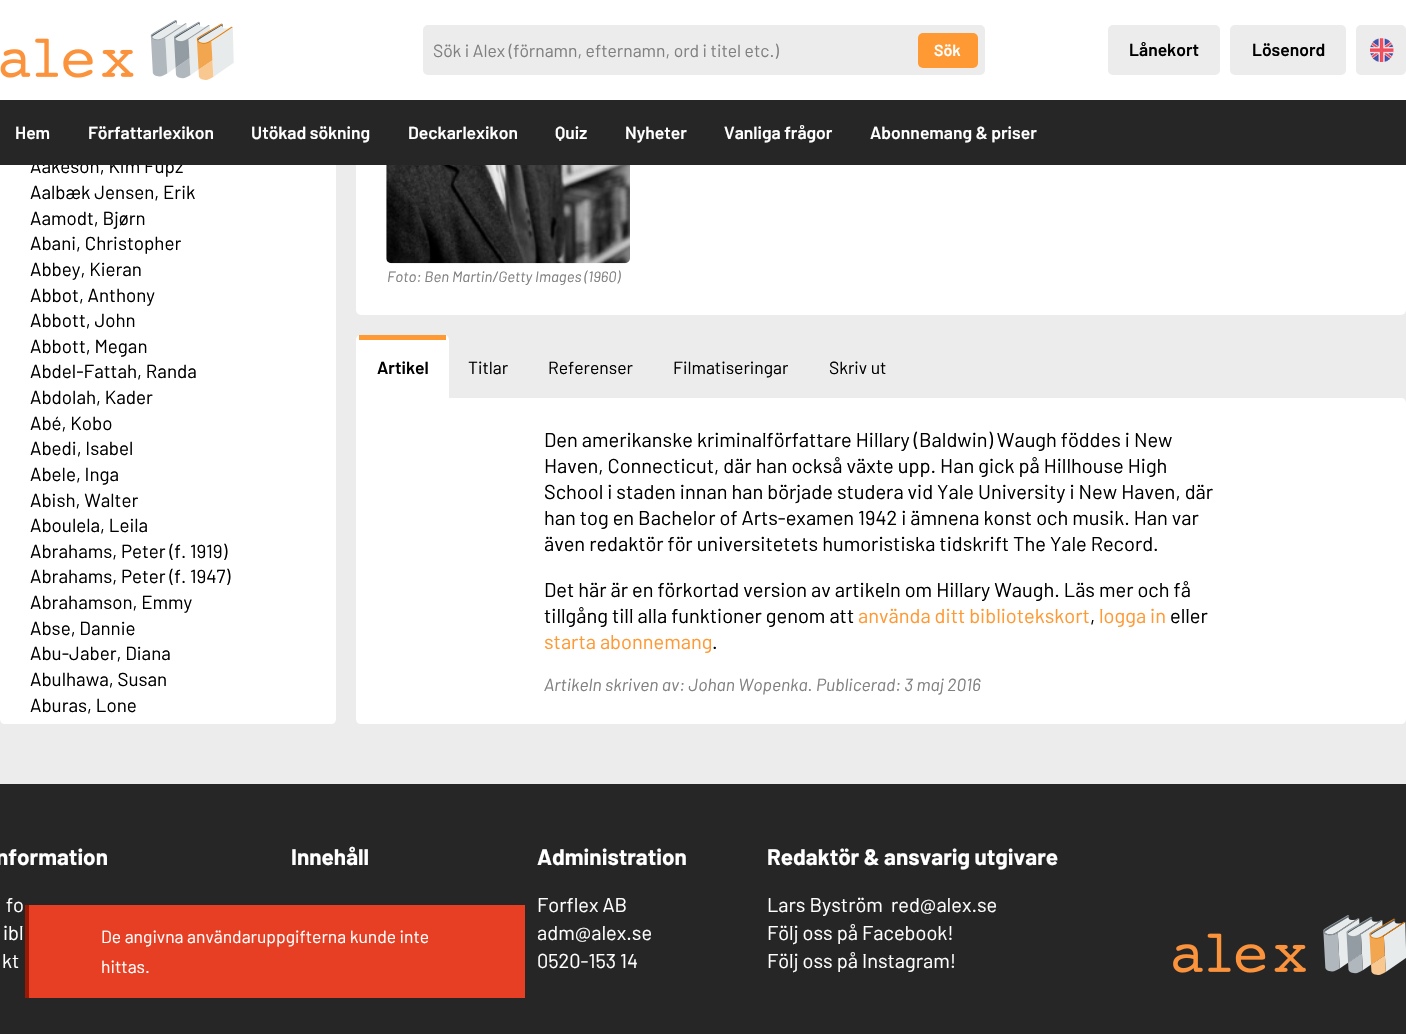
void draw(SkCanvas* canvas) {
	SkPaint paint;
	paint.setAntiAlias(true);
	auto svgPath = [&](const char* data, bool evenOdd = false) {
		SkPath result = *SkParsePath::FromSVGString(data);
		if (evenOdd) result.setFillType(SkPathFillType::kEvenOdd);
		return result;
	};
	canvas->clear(0xffececec);
	paint.setColor(0xffffffff);
	canvas->drawPath(svgPath("M0 94H336V719C336 722 334 724 331 724H5C2 724 0 722 0 719Z"), paint);
	canvas->drawRect(SkRect::MakeXYWH(0, 0, 356, 100), paint);
	SkFont f1(fontMgr->matchFamilyStyle("Barlow", SkFontStyle::Normal()), 18.75);
	f1.setSubpixel(true);
	paint.setColor(0xff000000);
	canvas->drawString("Aakeson, Kim Fupz", 30, 173, f1, paint);
	paint.setColor(0xffffffff);
	canvas->drawRoundRect(SkRect::MakeXYWH(356, -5, 1050, 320), 5, 5, paint);
	paint.setColor(0xff262626);
	canvas->drawRect(SkRect::MakeXYWH(0, 100, 1406, 65), paint);
	paint.setColor(0xffececec);
	canvas->drawRoundRect(SkRect::MakeXYWH(1108, 25, 112, 50), 5, 5, paint);
	SkFont f2(fontMgr->matchFamilyStyle("Barlow", SkFontStyle(600, SkFontStyle::kNormal_Width, SkFontStyle::kUpright_Slant)), 17.5);
	f2.setSubpixel(true);
	paint.setColor(0xff000000);
	canvas->drawString("Lånekort", 1129, 56, f2, paint);
	paint.setColor(0xffececec);
	canvas->drawRoundRect(SkRect::MakeXYWH(1230, 25, 116, 50), 5, 5, paint);
	paint.setColor(0xff000000);
	canvas->drawString("Lösenord", 1252, 56, f2, paint);
	paint.setColor(0xffececec);
	canvas->drawRoundRect(SkRect::MakeXYWH(1356, 25, 50, 50), 5, 5, paint);
	canvas->drawImageRect(SkImages::DeferredFromEncodedData(SkData::MakeFromFileName("img1.png")), SkRect::MakeXYWH(1370, 38, 24, 24), SkSamplingOptions());
	paint.setColor(0xffffffff);
	canvas->drawString("Hem", 15, 139, f2, paint);
	canvas->drawString("Författarlexikon", 88, 139, f2, paint);
	canvas->drawString("Utökad sökning", 251, 139, f2, paint);
	canvas->drawString("Deckarlexikon", 408, 139, f2, paint);
	canvas->drawString("Quiz", 555, 139, f2, paint);
	canvas->drawString("Nyheter", 625, 139, f2, paint);
	canvas->drawString("Vanliga frågor", 724, 139, f2, paint);
	canvas->drawString("Abonnemang & priser", 870, 139, f2, paint);
	canvas->drawImageRect(SkImages::DeferredFromEncodedData(SkData::MakeFromFileName("img2.png")), SkRect::MakeXYWH(0, 20, 234, 60), SkSamplingOptions());
	paint.setColor(0xffececec);
	canvas->drawRoundRect(SkRect::MakeXYWH(423, 25, 562, 50), 5, 5, paint);
	SkFont f3(fontMgr->matchFamilyStyle("Barlow", SkFontStyle::Normal()), 17.5);
	f3.setSubpixel(true);
	paint.setColor(0xff808080);
	canvas->drawString("Sök i Alex (förnamn, efternamn, ord i titel etc.)", 433, 57, f3, paint);
	paint.setColor(0xffff9933);
	canvas->drawRoundRect(SkRect::MakeXYWH(918, 33, 60, 35), 5, 5, paint);
	SkFont f4(fontMgr->matchFamilyStyle("Barlow", SkFontStyle(600, SkFontStyle::kNormal_Width, SkFontStyle::kUpright_Slant)), 16);
	f4.setSubpixel(true);
	paint.setColor(0xffffffff);
	canvas->drawString("Sök", 934, 56, f4, paint);
	paint.setColor(0xff000000);
	canvas->drawString("Aalbæk Jensen, Erik", 30, 199, f1, paint);
	canvas->drawString("Aamodt, Bjørn", 30, 225, f1, paint);
	canvas->drawString("Abani, Christopher", 30, 250, f1, paint);
	canvas->drawString("Abbey, Kieran", 30, 276, f1, paint);
	canvas->drawString("Abbot, Anthony", 30, 302, f1, paint);
	canvas->drawString("Abbott, John", 30, 327, f1, paint);
	canvas->drawString("Abbott, Megan", 30, 353, f1, paint);
	canvas->drawString("Abdel-Fattah, Randa", 30, 378, f1, paint);
	canvas->drawString("Abdolah, Kader", 30, 404, f1, paint);
	canvas->drawString("Abé, Kobo", 30, 430, f1, paint);
	canvas->drawString("Abedi, Isabel", 30, 455, f1, paint);
	canvas->drawString("Abele, Inga", 30, 481, f1, paint);
	canvas->drawString("Abish, Walter", 30, 507, f1, paint);
	canvas->drawString("Aboulela, Leila", 30, 532, f1, paint);
	canvas->drawString("Abrahams, Peter (f. 1919)", 30, 558, f1, paint);
	canvas->drawString("Abrahams, Peter (f. 1947)", 30, 583, f1, paint);
	canvas->drawString("Abrahamson, Emmy", 30, 609, f1, paint);
	canvas->drawString("Abse, Dannie", 30, 635, f1, paint);
	canvas->drawString("Abu-Jaber, Diana", 30, 660, f1, paint);
	canvas->drawString("Abulhawa, Susan", 30, 686, f1, paint);
	canvas->drawString("Aburas, Lone", 30, 712, f1, paint);
	canvas->drawImageRect(SkImages::DeferredFromEncodedData(SkData::MakeFromFileName("img3.png")), SkRect::MakeXYWH(386, 165, 244, 99), SkSamplingOptions());
	SkFont f5(fontMgr->matchFamilyStyle("Barlow", SkFontStyle::Italic()), 15);
	f5.setSubpixel(true);
	paint.setColor(0xff808080);
	canvas->drawString("Foto: Ben Martin/Getty Images (1960)", 387, 282, f5, paint);
	paint.setColor(0xffffffff);
	canvas->drawPath(svgPath("M361 335H444C447 335 449 337 449 340V398H356V340C356 337 358 335 361 335Z"), paint);
	paint.setColor(0xffff9933);
	canvas->drawRect(SkRect::MakeXYWH(359, 335, 87, 5), paint);
	paint.setColor(0xff000000);
	canvas->drawString("Artikel", 377, 374, f2, paint);
	canvas->drawString("Titlar", 468, 374, f3, paint);
	canvas->drawString("Referenser", 548, 374, f3, paint);
	canvas->drawString("Filmatiseringar", 673, 374, f3, paint);
	canvas->drawString("Skriv ut", 829, 374, f3, paint);
	paint.setColor(0xffffffff);
	canvas->drawPath(svgPath("M356 398H1401C1404 398 1406 400 1406 403V719C1406 722 1404 724 1401 724H361C358 724 356 722 356 719Z"), paint);
	SkFont f6(fontMgr->matchFamilyStyle("Barlow", SkFontStyle::Normal()), 20);
	f6.setSubpixel(true);
	paint.setColor(0xff000000);
	canvas->drawString("Den amerikanske kriminalförfattare Hillary (Baldwin) Waugh föddes i New", 544, 447, f6, paint);
	canvas->drawString("Haven, Connecticut, där han också växte upp. Han gick på Hillhouse High", 544, 473, f6, paint);
	canvas->drawString("School i staden innan han började studera vid Yale University i New Haven, där", 544, 499, f6, paint);
	canvas->drawString("han tog en Bachelor of Arts-examen 1942 i ämnena konst och musik. Han var", 544, 525, f6, paint);
	canvas->drawString("även redaktör för universitetets humoristiska tidskrift The Yale Record.", 544, 551, f6, paint);
	canvas->drawString("Det här är en förkortad version av artikeln om Hillary Waugh. Läs mer och få", 544, 597, f6, paint);
	canvas->drawString("tillgång till alla funktioner genom att", 544, 623, f6, paint);
	paint.setColor(0xffff9933);
	canvas->drawString("använda ditt bibliotekskort", 858, 623, f6, paint);
	paint.setColor(0xff000000);
	canvas->drawString(",", 1090, 623, f6, paint);
	paint.setColor(0xffff9933);
	canvas->drawString("logga in", 1099, 623, f6, paint);
	paint.setColor(0xff000000);
	canvas->drawString("eller", 1170, 623, f6, paint);
	paint.setColor(0xffff9933);
	canvas->drawString("starta abonnemang", 544, 649, f6, paint);
	paint.setColor(0xff000000);
	canvas->drawString(".", 712, 649, f6, paint);
	SkFont f7(fontMgr->matchFamilyStyle("Barlow", SkFontStyle::Italic()), 17.5);
	f7.setSubpixel(true);
	paint.setColor(0xff808080);
	canvas->drawString("Artikeln skriven av: Johan Wopenka. Publicerad: 3 maj 2016", 544, 691, f7, paint);
	paint.setColor(0xff262626);
	canvas->drawRect(SkRect::MakeXYWH(0, 784, 1406, 250), paint);
	canvas->drawImageRect(SkImages::DeferredFromEncodedData(SkData::MakeFromFileName("img4.png")), SkRect::MakeXYWH(1173, 915, 233, 60), SkSamplingOptions());
	SkFont f8(fontMgr->matchFamilyStyle("Barlow", SkFontStyle::Bold()), 22.5);
	f8.setSubpixel(true);
	paint.setColor(0xffffffff);
	canvas->drawString("nformation", -4, 865, f8, paint);
	canvas->drawString("fo", 6, 912, f6, paint);
	canvas->drawString("ibl", 3, 940, f6, paint);
	canvas->drawString("kt", 2, 968, f6, paint);
	canvas->drawString("Innehåll", 291, 865, f8, paint);
	canvas->drawString("Administration", 537, 865, f8, paint);
	canvas->drawString("Forflex AB", 537, 912, f6, paint);
	canvas->drawString("adm@alex.se", 537, 940, f6, paint);
	canvas->drawString("0520-153 14", 537, 968, f6, paint);
	canvas->drawString("Redaktör & ansvarig utgivare", 767, 865, f8, paint);
	canvas->drawString("Lars Byström", 767, 912, f6, paint);
	canvas->drawString("red@alex.se", 891, 912, f6, paint);
	canvas->drawString("Följ oss på Facebook!", 767, 940, f6, paint);
	canvas->drawString("Följ oss på Instagram!", 767, 968, f6, paint);
	paint.setColor(0xffe63f24);
	canvas->drawRect(SkRect::MakeXYWH(29, 905, 496, 93), paint);
	paint.setColor(0xff9a1904);
	canvas->drawRect(SkRect::MakeXYWH(25, 905, 4, 93), paint);
	paint.setColor(0xffffffff);
	canvas->drawString("De angivna användaruppgifterna kunde inte", 101, 943, f3, paint);
	canvas->drawString("hittas.", 101, 973, f3, paint);
}
